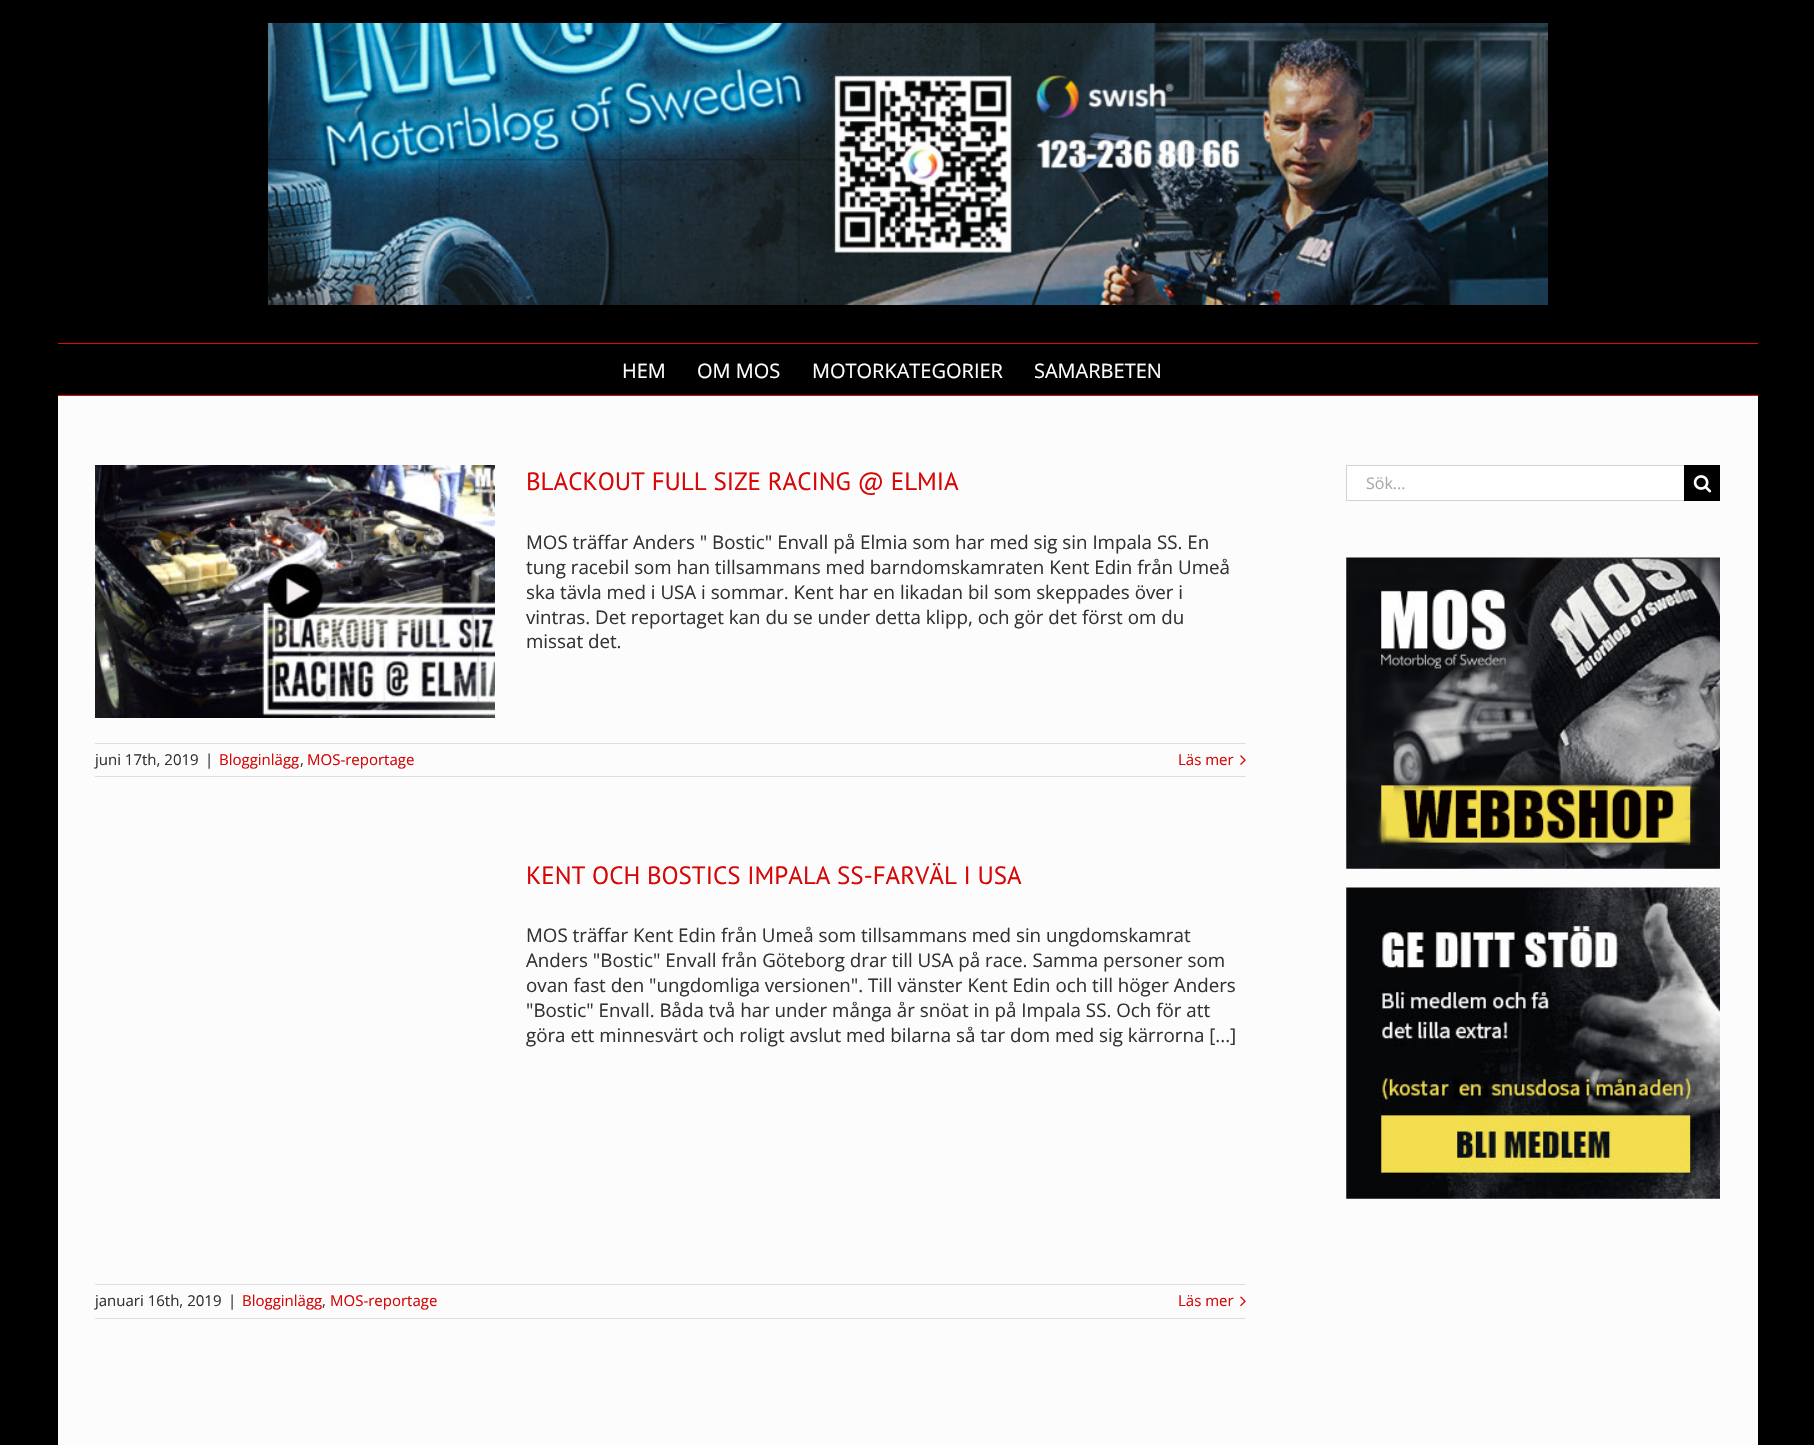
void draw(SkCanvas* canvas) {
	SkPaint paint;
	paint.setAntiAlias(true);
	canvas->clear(0xff000000);
	paint.setColor(0xffe80707);
	canvas->drawRect(SkRect::MakeXYWH(58, 343, 1700, 1), paint);
	canvas->drawImageRect(SkImages::DeferredFromEncodedData(SkData::MakeFromFileName("img1.png")), SkRect::MakeXYWH(268, 23, 1280, 282), SkSamplingOptions());
	canvas->drawRect(SkRect::MakeXYWH(58, 395, 1700, 1), paint);
	SkFont f1(fontMgr->matchFamilyStyle("Open Sans", SkFontStyle::Normal()), 20);
	f1.setSubpixel(true);
	paint.setColor(0xffffffff);
	canvas->drawString("HEM", 622, 378, f1, paint);
	canvas->drawString("OM MOS", 697, 378, f1, paint);
	canvas->drawString("MOTORKATEGORIER", 812, 378, f1, paint);
	canvas->drawString("SAMARBETEN", 1034, 378, f1, paint);
	paint.setColor(0xfffcfcfc);
	canvas->drawRect(SkRect::MakeXYWH(58, 396, 1700, 1049), paint);
	canvas->drawImageRect(SkImages::DeferredFromEncodedData(SkData::MakeFromFileName("img2.png")), SkRect::MakeXYWH(95, 465, 400, 253), SkSamplingOptions());
	SkFont f2(fontMgr->matchFamilyStyle("PT Sans", SkFontStyle::Normal()), 25);
	f2.setSubpixel(true);
	paint.setColor(0xffd60707);
	canvas->drawString("BLACKOUT FULL SIZE RACING @ ELMIA", 526, 490, f2, paint);
	SkFont f3(fontMgr->matchFamilyStyle("Open Sans", SkFontStyle::Normal()), 18.75);
	f3.setSubpixel(true);
	paint.setColor(0xff333333);
	canvas->drawString("MOS träffar Anders \" Bostic\" Envall på Elmia som har med sig sin Impala SS. En", 526, 549, f3, paint);
	canvas->drawString("tung racebil som han tillsammans med barndomskamraten Kent Edin från Umeå", 526, 574, f3, paint);
	canvas->drawString("ska tävla med i USA i sommar. Kent har en likadan bil som skeppades över i", 526, 599, f3, paint);
	canvas->drawString("vintras. Det reportaget kan du se under detta klipp, och gör det först om du", 526, 624, f3, paint);
	canvas->drawString("missat det.", 526, 648, f3, paint);
	paint.setColor(0xffe0dede);
	canvas->drawRect(SkRect::MakeXYWH(95, 743, 1151, 1), paint);
	canvas->drawRect(SkRect::MakeXYWH(95, 776, 1151, 1), paint);
	SkFont f4(fontMgr->matchFamilyStyle("Open Sans", SkFontStyle::Normal()), 15);
	f4.setSubpixel(true);
	paint.setColor(0xff333333);
	canvas->drawString("juni 17th, 2019", 95, 765, f4, paint);
	canvas->drawString("|", 205, 765, f4, paint);
	paint.setColor(0xffd60707);
	canvas->drawString("Blogginlägg", 219, 765, f4, paint);
	paint.setColor(0xff333333);
	canvas->drawString(",", 300, 765, f4, paint);
	paint.setColor(0xffd60707);
	canvas->drawString("MOS-reportage", 307, 765, f4, paint);
	canvas->drawString("Läs mer", 1178, 765, f4, paint);
	canvas->drawImageRect(SkImages::DeferredFromEncodedData(SkData::MakeFromFileName("img3.png")), SkRect::MakeXYWH(1240, 755, 6, 10), SkSamplingOptions());
	canvas->drawString("KENT OCH BOSTICS IMPALA SS-FARVÄL I USA", 526, 884, f2, paint);
	paint.setColor(0xff333333);
	canvas->drawString("MOS träffar Kent Edin från Umeå som tillsammans med sin ungdomskamrat", 526, 942, f3, paint);
	canvas->drawString("Anders \"Bostic\" Envall från Göteborg drar till USA på race. Samma personer som", 526, 967, f3, paint);
	canvas->drawString("ovan fast den \"ungdomliga versionen\". Till vänster Kent Edin och till höger Anders", 526, 992, f3, paint);
	canvas->drawString("\"Bostic\" Envall. Båda två har under många år snöat in på Impala SS. Och för att", 526, 1017, f3, paint);
	canvas->drawString("göra ett minnesvärt och roligt avslut med bilarna så tar dom med sig kärrorna [...]", 526, 1042, f3, paint);
	paint.setColor(0xffe0dede);
	canvas->drawRect(SkRect::MakeXYWH(95, 1284, 1151, 1), paint);
	canvas->drawRect(SkRect::MakeXYWH(95, 1318, 1151, 1), paint);
	paint.setColor(0xff333333);
	canvas->drawString("januari 16th, 2019", 95, 1306, f4, paint);
	canvas->drawString("|", 228, 1306, f4, paint);
	paint.setColor(0xffd60707);
	canvas->drawString("Blogginlägg", 242, 1306, f4, paint);
	paint.setColor(0xff333333);
	canvas->drawString(",", 322, 1306, f4, paint);
	paint.setColor(0xffd60707);
	canvas->drawString("MOS-reportage", 330, 1306, f4, paint);
	canvas->drawString("Läs mer", 1178, 1306, f4, paint);
	canvas->drawImageRect(SkImages::DeferredFromEncodedData(SkData::MakeFromFileName("img4.png")), SkRect::MakeXYWH(1240, 1296, 6, 11), SkSamplingOptions());
	paint.setColor(0xffffffff);
	canvas->drawRect(SkRect::MakeXYWH(1347, 466, 337, 34), paint);
	paint.setColor(0xffd2d2d2);
	canvas->drawRect(SkRect::MakeXYWH(1346, 465, 338, 1), paint);
	canvas->drawRect(SkRect::MakeXYWH(1346, 500, 338, 1), paint);
	canvas->drawRect(SkRect::MakeXYWH(1346, 465, 1, 36), paint);
	SkFont f5(fontMgr->matchFamilyStyle("Open Sans", SkFontStyle::Normal()), 16);
	f5.setSubpixel(true);
	paint.setColor(0xffaaa9a9);
	canvas->drawString("Sök...", 1366, 489, f5, paint);
	paint.setColor(0xff000000);
	canvas->drawRect(SkRect::MakeXYWH(1684, 465, 36, 36), paint);
	canvas->drawImageRect(SkImages::DeferredFromEncodedData(SkData::MakeFromFileName("img5.png")), SkRect::MakeXYWH(1693, 475, 19, 18), SkSamplingOptions());
	canvas->drawImageRect(SkImages::DeferredFromEncodedData(SkData::MakeFromFileName("img6.png")), SkRect::MakeXYWH(1346, 557, 374, 312), SkSamplingOptions());
	canvas->drawImageRect(SkImages::DeferredFromEncodedData(SkData::MakeFromFileName("img7.png")), SkRect::MakeXYWH(1346, 887, 374, 312), SkSamplingOptions());
}
